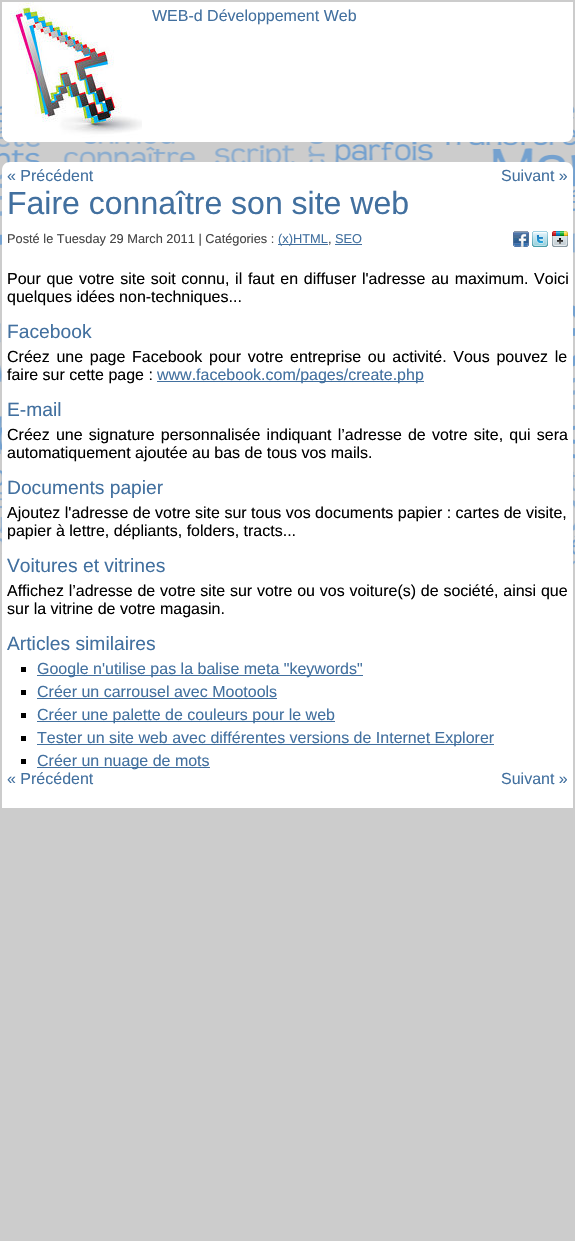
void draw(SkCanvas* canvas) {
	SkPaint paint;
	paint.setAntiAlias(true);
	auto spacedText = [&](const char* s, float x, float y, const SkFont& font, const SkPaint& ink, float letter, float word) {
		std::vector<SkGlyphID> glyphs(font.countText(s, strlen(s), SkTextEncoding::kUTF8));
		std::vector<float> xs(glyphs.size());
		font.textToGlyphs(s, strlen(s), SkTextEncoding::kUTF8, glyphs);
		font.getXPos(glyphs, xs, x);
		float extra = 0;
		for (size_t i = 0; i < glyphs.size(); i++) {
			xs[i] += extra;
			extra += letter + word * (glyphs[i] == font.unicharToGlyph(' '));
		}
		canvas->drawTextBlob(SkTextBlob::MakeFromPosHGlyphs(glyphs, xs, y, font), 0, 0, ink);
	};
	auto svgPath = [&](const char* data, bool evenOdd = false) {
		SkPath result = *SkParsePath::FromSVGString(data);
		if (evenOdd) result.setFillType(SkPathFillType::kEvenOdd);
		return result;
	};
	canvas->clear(0xffcccccc);
	canvas->drawImageRect(SkImages::DeferredFromEncodedData(SkData::MakeFromFileName("img1.png")), SkRect::MakeXYWH(0, 26, 575, 565), SkSamplingOptions());
	paint.setColor(0xffffffff);
	canvas->drawPath(svgPath("M2 2H573V134C573 138.5 569.5 142 565 142H10C5.5 142 2 138.5 2 134Z"), paint);
	canvas->drawImageRect(SkImages::DeferredFromEncodedData(SkData::MakeFromFileName("img2.png")), SkRect::MakeXYWH(2, 2, 140, 140), SkSamplingOptions());
	SkFont f1(fontMgr->matchFamilyStyle("Liberation Sans", SkFontStyle::Normal()), 16);
	f1.setSubpixel(true);
	paint.setColor(0xff42709f);
	canvas->drawString("WEB-d Développement Web", 152, 21, f1, paint);
	paint.setColor(0xffffffff);
	canvas->drawPath(svgPath("M10 162H565C569.5 162 573 165.5 573 170V808H2V170C2 165.5 5.5 162 10 162Z"), paint);
	paint.setColor(0xff42709f);
	canvas->drawString("« Précédent", 7, 181, f1, paint);
	canvas->drawString("Suivant »", 501, 181, f1, paint);
	SkFont f2(fontMgr->matchFamilyStyle("Liberation Sans", SkFontStyle::Normal()), 32);
	f2.setSubpixel(true);
	canvas->drawString("Faire connaître son site web", 7, 214, f2, paint);
	SkFont f3(fontMgr->matchFamilyStyle("Liberation Sans", SkFontStyle::Normal()), 12.8);
	f3.setSubpixel(true);
	paint.setColor(0xff444444);
	canvas->drawString("Posté le Tuesday 29 March 2011 | Catégories :", 7, 243, f3, paint);
	paint.setColor(0xff42709f);
	canvas->drawRect(SkRect::MakeXYWH(278, 244, 50, 1), paint);
	canvas->drawString("(x)HTML", 278, 243, f3, paint);
	paint.setColor(0xff444444);
	canvas->drawString(",", 328, 243, f3, paint);
	paint.setColor(0xff42709f);
	canvas->drawString("SEO", 335, 243, f3, paint);
	canvas->drawRect(SkRect::MakeXYWH(335, 244, 27, 1), paint);
	canvas->drawImageRect(SkImages::DeferredFromEncodedData(SkData::MakeFromFileName("img3.png")), SkRect::MakeXYWH(513, 231, 16, 16), SkSamplingOptions());
	canvas->drawImageRect(SkImages::DeferredFromEncodedData(SkData::MakeFromFileName("img4.png")), SkRect::MakeXYWH(532, 231, 16, 16), SkSamplingOptions());
	canvas->drawImageRect(SkImages::DeferredFromEncodedData(SkData::MakeFromFileName("img5.png")), SkRect::MakeXYWH(552, 231, 16, 16), SkSamplingOptions());
	paint.setColor(0xff000000);
	spacedText("Pour que votre site soit connu, il faut en diffuser l'adresse au maximum. Voici", 7, 284, f1, paint, 0, 1.25);
	canvas->drawString("quelques idées non-techniques...", 7, 302, f1, paint);
	SkFont f4(fontMgr->matchFamilyStyle("Liberation Sans", SkFontStyle::Normal()), 19.25);
	f4.setSubpixel(true);
	paint.setColor(0xff42709f);
	canvas->drawString("Facebook", 7, 338, f4, paint);
	paint.setColor(0xff000000);
	spacedText("Créez une page Facebook pour votre entreprise ou activité. Vous pouvez le", 7, 362, f1, paint, 0, 2.25);
	canvas->drawString("faire sur cette page :", 7, 380, f1, paint);
	paint.setColor(0xff42709f);
	canvas->drawRect(SkRect::MakeXYWH(157, 381, 267, 1), paint);
	canvas->drawString("www.facebook.com/pages/create.php", 157, 380, f1, paint);
	canvas->drawString("E-mail", 7, 416, f4, paint);
	paint.setColor(0xff000000);
	spacedText("Créez une signature personnalisée indiquant l’adresse de votre site, qui sera", 7, 440, f1, paint, 0, 1.75);
	canvas->drawString("automatiquement ajoutée au bas de tous vos mails.", 7, 458, f1, paint);
	paint.setColor(0xff42709f);
	canvas->drawString("Documents papier", 7, 494, f4, paint);
	paint.setColor(0xff000000);
	canvas->drawString("Ajoutez l'adresse de votre site sur tous vos documents papier : cartes de visite,", 7, 518, f1, paint);
	canvas->drawString("papier à lettre, dépliants, folders, tracts...", 7, 536, f1, paint);
	paint.setColor(0xff42709f);
	canvas->drawString("Voitures et vitrines", 7, 572, f4, paint);
	paint.setColor(0xff000000);
	spacedText("Affichez l’adresse de votre site sur votre ou vos voiture(s) de société, ainsi que", 7, 596, f1, paint, 0, 0.3);
	canvas->drawString("sur la vitrine de votre magasin.", 7, 614, f1, paint);
	paint.setColor(0xff42709f);
	canvas->drawString("Articles similaires", 7, 650, f4, paint);
	paint.setColor(0xff000000);
	canvas->drawRect(SkRect::MakeXYWH(21, 667, 5, 5), paint);
	paint.setColor(0xff42709f);
	canvas->drawRect(SkRect::MakeXYWH(37, 675, 326, 1), paint);
	canvas->drawString("Google n'utilise pas la balise meta \"keywords\"", 37, 674, f1, paint);
	paint.setColor(0xff000000);
	canvas->drawRect(SkRect::MakeXYWH(21, 690, 5, 5), paint);
	paint.setColor(0xff42709f);
	canvas->drawString("Créer un carrousel avec Mootools", 37, 697, f1, paint);
	canvas->drawRect(SkRect::MakeXYWH(37, 698, 240, 1), paint);
	paint.setColor(0xff000000);
	canvas->drawRect(SkRect::MakeXYWH(21, 713, 5, 5), paint);
	paint.setColor(0xff42709f);
	canvas->drawRect(SkRect::MakeXYWH(37, 721, 298, 1), paint);
	canvas->drawString("Créer une palette de couleurs pour le web", 37, 720, f1, paint);
	paint.setColor(0xff000000);
	canvas->drawRect(SkRect::MakeXYWH(21, 736, 5, 5), paint);
	paint.setColor(0xff42709f);
	canvas->drawRect(SkRect::MakeXYWH(37, 744, 457, 1), paint);
	canvas->drawString("Tester un site web avec différentes versions de Internet Explorer", 37, 743, f1, paint);
	paint.setColor(0xff000000);
	canvas->drawRect(SkRect::MakeXYWH(21, 759, 5, 5), paint);
	paint.setColor(0xff42709f);
	canvas->drawRect(SkRect::MakeXYWH(37, 767, 173, 1), paint);
	canvas->drawString("Créer un nuage de mots", 37, 766, f1, paint);
	canvas->drawString("« Précédent", 7, 784, f1, paint);
	canvas->drawString("Suivant »", 501, 784, f1, paint);
}
